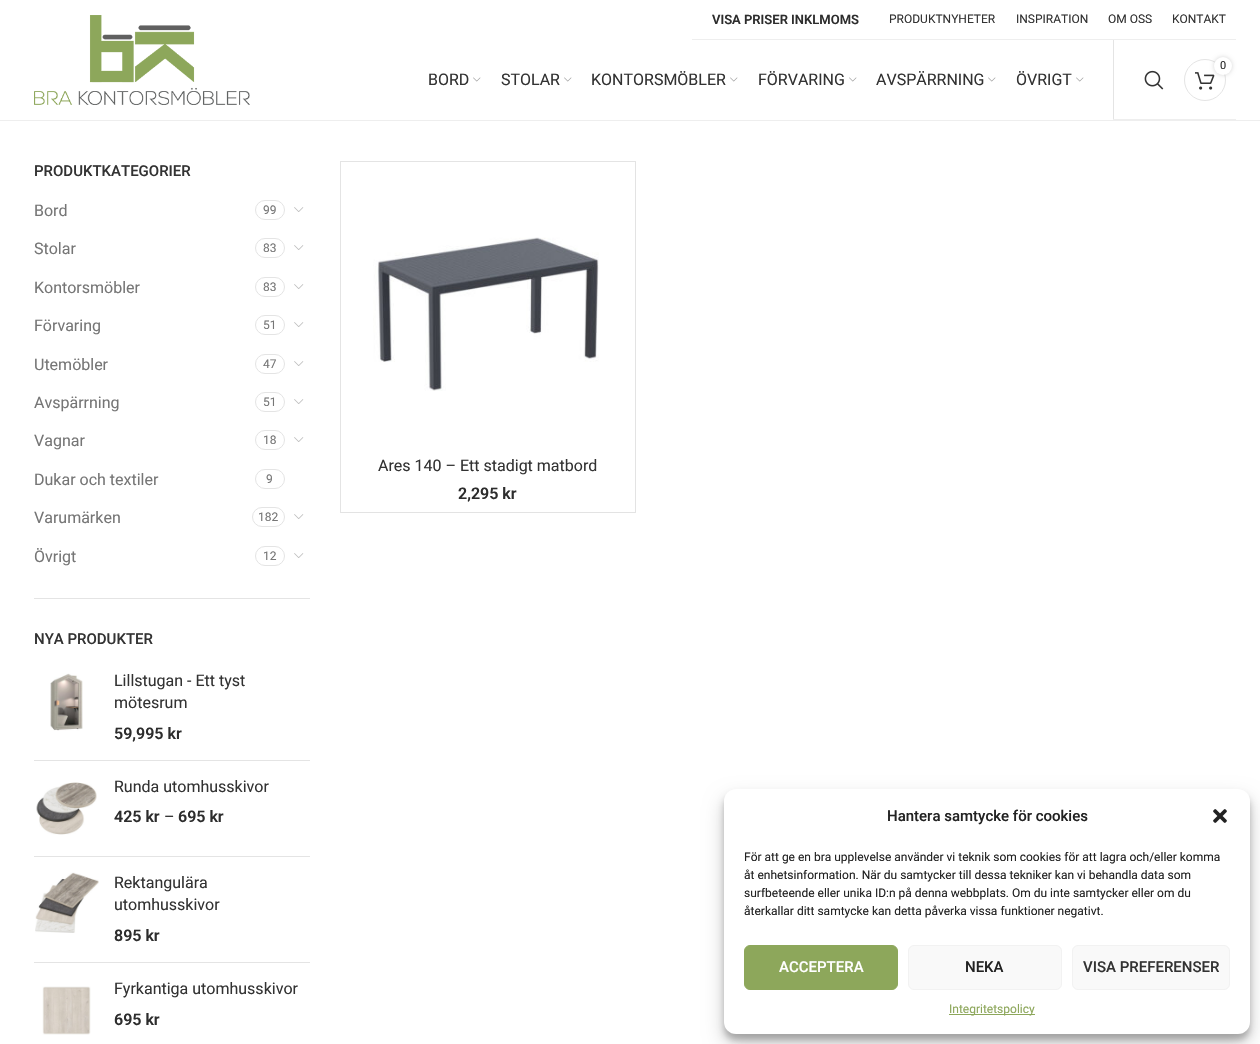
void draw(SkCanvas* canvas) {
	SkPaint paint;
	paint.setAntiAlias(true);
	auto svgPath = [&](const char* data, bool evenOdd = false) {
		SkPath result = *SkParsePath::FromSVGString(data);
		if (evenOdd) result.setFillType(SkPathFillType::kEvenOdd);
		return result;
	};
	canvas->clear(0xffffffff);
	paint.setColor(0xffeeeeee);
	canvas->drawRect(SkRect::MakeXYWH(692, 39, 544, 1), paint);
	SkFont f1(fontMgr->matchFamilyStyle("Roboto", SkFontStyle(600, SkFontStyle::kNormal_Width, SkFontStyle::kUpright_Slant)), 13);
	f1.setSubpixel(true);
	paint.setColor(0xff2d2d2d);
	canvas->drawString("VISA PRISER INKLMOMS", 712, 24, f1, paint);
	SkFont f2(fontMgr->matchFamilyStyle("Roboto", SkFontStyle::Normal()), 12);
	f2.setSubpixel(true);
	paint.setColor(0xff333333);
	canvas->drawString("PRODUKTNYHETER", 889, 23, f2, paint);
	canvas->drawString("INSPIRATION", 1016, 23, f2, paint);
	canvas->drawString("OM OSS", 1108, 23, f2, paint);
	canvas->drawString("KONTAKT", 1172, 23, f2, paint);
	paint.setColor(0xffeeeeee);
	canvas->drawRect(SkRect::MakeXYWH(0, 120, 1260, 1), paint);
	canvas->drawImageRect(SkImages::DeferredFromEncodedData(SkData::MakeFromFileName("img1.png")), SkRect::MakeXYWH(34, 15, 216, 90), SkSamplingOptions());
	canvas->drawRect(SkRect::MakeXYWH(1113, 119, 123, 1), paint);
	paint.setColor(0xffe4e4e4);
	canvas->drawRect(SkRect::MakeXYWH(1113, 40, 1, 79), paint);
	paint.setStroke(true);
	paint.setStrokeWidth(1);
	canvas->drawCircle(1205, 80, 20.5, paint);
	canvas->drawImageRect(SkImages::DeferredFromEncodedData(SkData::MakeFromFileName("img2.png")), SkRect::MakeXYWH(1195, 72, 20, 18), SkSamplingOptions());
	paint.setStroke(false);
	paint.setColor(0x2b000000);
	paint.setMaskFilter(SkMaskFilter::MakeBlur(kNormal_SkBlurStyle, 2));
	canvas->drawRoundRect(SkRect::MakeXYWH(1214, 57, 18, 18), 9, 9, paint);
	paint.setMaskFilter(nullptr);
	paint.setColor(0xffffffff);
	canvas->drawCircle(1223, 66, 9, paint);
	SkFont f3(fontMgr->matchFamilyStyle("Roboto", SkFontStyle::Normal()), 11);
	f3.setSubpixel(true);
	paint.setColor(0xff2d2d2d);
	canvas->drawString("0", 1220, 69, f3, paint);
	canvas->drawImageRect(SkImages::DeferredFromEncodedData(SkData::MakeFromFileName("img3.png")), SkRect::MakeXYWH(1144, 70, 20, 20), SkSamplingOptions());
	SkFont f4(fontMgr->matchFamilyStyle("Roboto", SkFontStyle::Normal()), 16);
	f4.setSubpixel(true);
	paint.setColor(0xff333333);
	canvas->drawString("BORD", 428, 85, f4, paint);
	canvas->drawImageRect(SkImages::DeferredFromEncodedData(SkData::MakeFromFileName("img4.png")), SkRect::MakeXYWH(473, 77, 8, 5), SkSamplingOptions());
	canvas->drawString("STOLAR", 501, 85, f4, paint);
	canvas->drawImageRect(SkImages::DeferredFromEncodedData(SkData::MakeFromFileName("img4.png")), SkRect::MakeXYWH(564, 77, 8, 5), SkSamplingOptions());
	canvas->drawString("KONTORSMÖBLER", 591, 85, f4, paint);
	canvas->drawImageRect(SkImages::DeferredFromEncodedData(SkData::MakeFromFileName("img4.png")), SkRect::MakeXYWH(730, 77, 8, 5), SkSamplingOptions());
	canvas->drawString("FÖRVARING", 758, 85, f4, paint);
	canvas->drawImageRect(SkImages::DeferredFromEncodedData(SkData::MakeFromFileName("img4.png")), SkRect::MakeXYWH(849, 77, 8, 5), SkSamplingOptions());
	canvas->drawString("AVSPÄRRNING", 876, 85, f4, paint);
	canvas->drawImageRect(SkImages::DeferredFromEncodedData(SkData::MakeFromFileName("img4.png")), SkRect::MakeXYWH(988, 77, 8, 5), SkSamplingOptions());
	canvas->drawString("ÖVRIGT", 1016, 85, f4, paint);
	canvas->drawImageRect(SkImages::DeferredFromEncodedData(SkData::MakeFromFileName("img4.png")), SkRect::MakeXYWH(1076, 77, 8, 5), SkSamplingOptions());
	paint.setColor(0xffe4e4e4);
	canvas->drawRect(SkRect::MakeXYWH(34, 598, 276, 1), paint);
	SkFont f5(fontMgr->matchFamilyStyle("Roboto", SkFontStyle(500, SkFontStyle::kNormal_Width, SkFontStyle::kUpright_Slant)), 15);
	f5.setSubpixel(true);
	paint.setColor(0xff333333);
	canvas->drawString("PRODUKTKATEGORIER", 34, 176, f5, paint);
	paint.setColor(0xff767676);
	canvas->drawString("Bord", 34, 216, f4, paint);
	paint.setStroke(true);
	paint.setColor(0xffe4e4e4);
	canvas->drawRoundRect(SkRect::MakeXYWH(255.5, 200.5, 29, 19), 9.5, 9.5, paint);
	paint.setStroke(false);
	paint.setColor(0xff767676);
	canvas->drawString("99", 263, 214, f2, paint);
	canvas->drawImageRect(SkImages::DeferredFromEncodedData(SkData::MakeFromFileName("img5.png")), SkRect::MakeXYWH(294, 207, 10, 5), SkSamplingOptions());
	canvas->drawString("Stolar", 34, 254, f4, paint);
	paint.setStroke(true);
	paint.setColor(0xffe4e4e4);
	canvas->drawRoundRect(SkRect::MakeXYWH(255.5, 238.5, 29, 19), 9.5, 9.5, paint);
	paint.setStroke(false);
	paint.setColor(0xff767676);
	canvas->drawString("83", 263, 252, f2, paint);
	canvas->drawImageRect(SkImages::DeferredFromEncodedData(SkData::MakeFromFileName("img5.png")), SkRect::MakeXYWH(294, 245, 10, 5), SkSamplingOptions());
	canvas->drawString("Kontorsmöbler", 34, 293, f4, paint);
	paint.setStroke(true);
	paint.setColor(0xffe4e4e4);
	canvas->drawRoundRect(SkRect::MakeXYWH(255.5, 277.5, 29, 19), 9.5, 9.5, paint);
	paint.setStroke(false);
	paint.setColor(0xff767676);
	canvas->drawString("83", 263, 291, f2, paint);
	canvas->drawImageRect(SkImages::DeferredFromEncodedData(SkData::MakeFromFileName("img5.png")), SkRect::MakeXYWH(294, 284, 10, 5), SkSamplingOptions());
	canvas->drawString("Förvaring", 34, 331, f4, paint);
	paint.setStroke(true);
	paint.setColor(0xffe4e4e4);
	canvas->drawRoundRect(SkRect::MakeXYWH(255.5, 315.5, 29, 19), 9.5, 9.5, paint);
	paint.setStroke(false);
	paint.setColor(0xff767676);
	canvas->drawString("51", 263, 329, f2, paint);
	canvas->drawImageRect(SkImages::DeferredFromEncodedData(SkData::MakeFromFileName("img5.png")), SkRect::MakeXYWH(294, 322, 10, 5), SkSamplingOptions());
	canvas->drawString("Utemöbler", 34, 370, f4, paint);
	paint.setStroke(true);
	paint.setColor(0xffe4e4e4);
	canvas->drawRoundRect(SkRect::MakeXYWH(255.5, 354.5, 29, 19), 9.5, 9.5, paint);
	paint.setStroke(false);
	paint.setColor(0xff767676);
	canvas->drawString("47", 263, 368, f2, paint);
	canvas->drawImageRect(SkImages::DeferredFromEncodedData(SkData::MakeFromFileName("img5.png")), SkRect::MakeXYWH(294, 361, 10, 5), SkSamplingOptions());
	canvas->drawString("Avspärrning", 34, 408, f4, paint);
	paint.setStroke(true);
	paint.setColor(0xffe4e4e4);
	canvas->drawRoundRect(SkRect::MakeXYWH(255.5, 392.5, 29, 19), 9.5, 9.5, paint);
	paint.setStroke(false);
	paint.setColor(0xff767676);
	canvas->drawString("51", 263, 406, f2, paint);
	canvas->drawImageRect(SkImages::DeferredFromEncodedData(SkData::MakeFromFileName("img5.png")), SkRect::MakeXYWH(294, 399, 10, 5), SkSamplingOptions());
	canvas->drawString("Vagnar", 34, 446, f4, paint);
	paint.setStroke(true);
	paint.setColor(0xffe4e4e4);
	canvas->drawRoundRect(SkRect::MakeXYWH(255.5, 430.5, 29, 19), 9.5, 9.5, paint);
	paint.setStroke(false);
	paint.setColor(0xff767676);
	canvas->drawString("18", 263, 444, f2, paint);
	canvas->drawImageRect(SkImages::DeferredFromEncodedData(SkData::MakeFromFileName("img5.png")), SkRect::MakeXYWH(294, 437, 10, 5), SkSamplingOptions());
	canvas->drawString("Dukar och textiler", 34, 485, f4, paint);
	paint.setStroke(true);
	paint.setColor(0xffe4e4e4);
	canvas->drawRoundRect(SkRect::MakeXYWH(255.5, 469.5, 29, 19), 9.5, 9.5, paint);
	paint.setStroke(false);
	paint.setColor(0xff767676);
	canvas->drawString("9", 266, 483, f2, paint);
	canvas->drawString("Varumärken", 34, 523, f4, paint);
	paint.setStroke(true);
	paint.setColor(0xffe4e4e4);
	canvas->drawRoundRect(SkRect::MakeXYWH(252.5, 507.5, 32, 19), 9.5, 9.5, paint);
	paint.setStroke(false);
	paint.setColor(0xff767676);
	canvas->drawString("182", 258, 521, f2, paint);
	canvas->drawImageRect(SkImages::DeferredFromEncodedData(SkData::MakeFromFileName("img5.png")), SkRect::MakeXYWH(294, 514, 10, 5), SkSamplingOptions());
	canvas->drawString("Övrigt", 34, 562, f4, paint);
	paint.setStroke(true);
	paint.setColor(0xffe4e4e4);
	canvas->drawRoundRect(SkRect::MakeXYWH(255.5, 546.5, 29, 19), 9.5, 9.5, paint);
	paint.setStroke(false);
	paint.setColor(0xff767676);
	canvas->drawString("12", 263, 560, f2, paint);
	canvas->drawImageRect(SkImages::DeferredFromEncodedData(SkData::MakeFromFileName("img5.png")), SkRect::MakeXYWH(294, 553, 10, 5), SkSamplingOptions());
	paint.setColor(0xff333333);
	canvas->drawString("NYA PRODUKTER", 34, 644, f5, paint);
	paint.setColor(0xffe4e4e4);
	canvas->drawRect(SkRect::MakeXYWH(34, 760, 276, 1), paint);
	canvas->drawImageRect(SkImages::DeferredFromEncodedData(SkData::MakeFromFileName("img6.png")), SkRect::MakeXYWH(50, 673, 33, 58), SkSamplingOptions());
	paint.setColor(0xff333333);
	canvas->drawString("Lillstugan - Ett tyst", 114, 686, f4, paint);
	canvas->drawString("mötesrum", 114, 708, f4, paint);
	SkFont f6(fontMgr->matchFamilyStyle("Roboto", SkFontStyle(600, SkFontStyle::kNormal_Width, SkFontStyle::kUpright_Slant)), 16);
	f6.setSubpixel(true);
	paint.setColor(0xff2d2d2d);
	canvas->drawString("59,995 kr", 114, 739, f6, paint);
	paint.setColor(0xffe4e4e4);
	canvas->drawRect(SkRect::MakeXYWH(34, 856, 276, 1), paint);
	canvas->drawImageRect(SkImages::DeferredFromEncodedData(SkData::MakeFromFileName("img7.png")), SkRect::MakeXYWH(36, 782, 61, 53), SkSamplingOptions());
	paint.setColor(0xff333333);
	canvas->drawString("Runda utomhusskivor", 114, 792, f4, paint);
	paint.setColor(0xff2d2d2d);
	canvas->drawString("425 kr", 114, 822, f6, paint);
	canvas->drawString("–", 164, 822, f4, paint);
	canvas->drawString("695 kr", 178, 822, f6, paint);
	paint.setColor(0xffe4e4e4);
	canvas->drawRect(SkRect::MakeXYWH(34, 962, 276, 1), paint);
	canvas->drawImageRect(SkImages::DeferredFromEncodedData(SkData::MakeFromFileName("img8.png")), SkRect::MakeXYWH(35, 872, 64, 61), SkSamplingOptions());
	paint.setColor(0xff333333);
	canvas->drawString("Rektangulära", 114, 888, f4, paint);
	canvas->drawString("utomhusskivor", 114, 910, f4, paint);
	paint.setColor(0xff2d2d2d);
	canvas->drawString("895 kr", 114, 941, f6, paint);
	canvas->drawImageRect(SkImages::DeferredFromEncodedData(SkData::MakeFromFileName("img9.png")), SkRect::MakeXYWH(42, 986, 49, 49), SkSamplingOptions());
	paint.setColor(0xff333333);
	canvas->drawString("Fyrkantiga utomhusskivor", 114, 994, f4, paint);
	paint.setColor(0xff2d2d2d);
	canvas->drawString("695 kr", 114, 1025, f6, paint);
	paint.setColor(0xffe4e4e4);
	canvas->drawRect(SkRect::MakeXYWH(340, 161, 1, 352), paint);
	canvas->drawPath(svgPath("M341 161H636L635 162H341Z"), paint);
	paint.setColor(0x1c000000);
	canvas->drawPath(svgPath("M636 161V513L635 512V162Z"), paint);
	canvas->drawPath(svgPath("M636 513H341V512H635Z"), paint);
	canvas->drawImageRect(SkImages::DeferredFromEncodedData(SkData::MakeFromFileName("img10.png")), SkRect::MakeXYWH(373, 237, 226, 154), SkSamplingOptions());
	paint.setColor(0xff333333);
	canvas->drawString("Ares 140 – Ett stadigt matbord", 378, 471, f4, paint);
	paint.setColor(0xff2d2d2d);
	canvas->drawString("2,295 kr", 458, 499, f6, paint);
	paint.setColor(0x3b000000);
	paint.setMaskFilter(SkMaskFilter::MakeBlur(kNormal_SkBlurStyle, 3));
	canvas->drawRoundRect(SkRect::MakeXYWH(724, 795, 526, 245), 12, 12, paint);
	paint.setMaskFilter(nullptr);
	paint.setColor(0x30000000);
	paint.setMaskFilter(SkMaskFilter::MakeBlur(kNormal_SkBlurStyle, 10));
	canvas->drawRoundRect(SkRect::MakeXYWH(724, 799, 526, 245), 12, 12, paint);
	paint.setMaskFilter(nullptr);
	paint.setColor(0xffffffff);
	canvas->drawRoundRect(SkRect::MakeXYWH(724, 789, 526, 245), 12, 12, paint);
	paint.setColor(0xff222222);
	canvas->drawString("Hantera samtycke för cookies", 887, 821, f5, paint);
	canvas->drawImageRect(SkImages::DeferredFromEncodedData(SkData::MakeFromFileName("img11.png")), SkRect::MakeXYWH(1213, 809, 14, 14), SkSamplingOptions());
	canvas->drawString("För att ge en bra upplevelse använder vi teknik som cookies för att lagra och/eller komma", 744, 861, f2, paint);
	canvas->drawString("åt enhetsinformation. När du samtycker till dessa tekniker kan vi behandla data som", 744, 879, f2, paint);
	canvas->drawString("surfbeteende eller unika ID:n på denna webbplats. Om du inte samtycker eller om du", 744, 897, f2, paint);
	canvas->drawString("återkallar ditt samtycke kan detta påverka vissa funktioner negativt.", 744, 915, f2, paint);
	paint.setColor(0xff8da75b);
	canvas->drawRoundRect(SkRect::MakeXYWH(744.5, 945.5, 153, 44), 5.5, 5.5, paint);
	paint.setStroke(true);
	canvas->drawRoundRect(SkRect::MakeXYWH(744.5, 945.5, 153, 44), 5.5, 5.5, paint);
	paint.setStroke(false);
	paint.setColor(0xffffffff);
	canvas->drawString("ACCEPTERA", 779, 972, f5, paint);
	paint.setColor(0xfff9f9f9);
	canvas->drawRoundRect(SkRect::MakeXYWH(908.5, 945.5, 153, 44), 5.5, 5.5, paint);
	paint.setStroke(true);
	paint.setColor(0xfff2f2f2);
	canvas->drawRoundRect(SkRect::MakeXYWH(908.5, 945.5, 153, 44), 5.5, 5.5, paint);
	paint.setStroke(false);
	paint.setColor(0xff222222);
	canvas->drawString("NEKA", 965, 972, f5, paint);
	paint.setColor(0xfff9f9f9);
	canvas->drawRoundRect(SkRect::MakeXYWH(1072.5, 945.5, 157, 44), 5.5, 5.5, paint);
	paint.setStroke(true);
	paint.setColor(0xfff2f2f2);
	canvas->drawRoundRect(SkRect::MakeXYWH(1072.5, 945.5, 157, 44), 5.5, 5.5, paint);
	paint.setStroke(false);
	paint.setColor(0xff333333);
	canvas->drawString("VISA PREFERENSER", 1083, 972, f5, paint);
	paint.setColor(0xff8da75b);
	canvas->drawRect(SkRect::MakeXYWH(949, 1014, 86, 1), paint);
	canvas->drawString("Integritetspolicy", 949, 1013, f2, paint);
}
